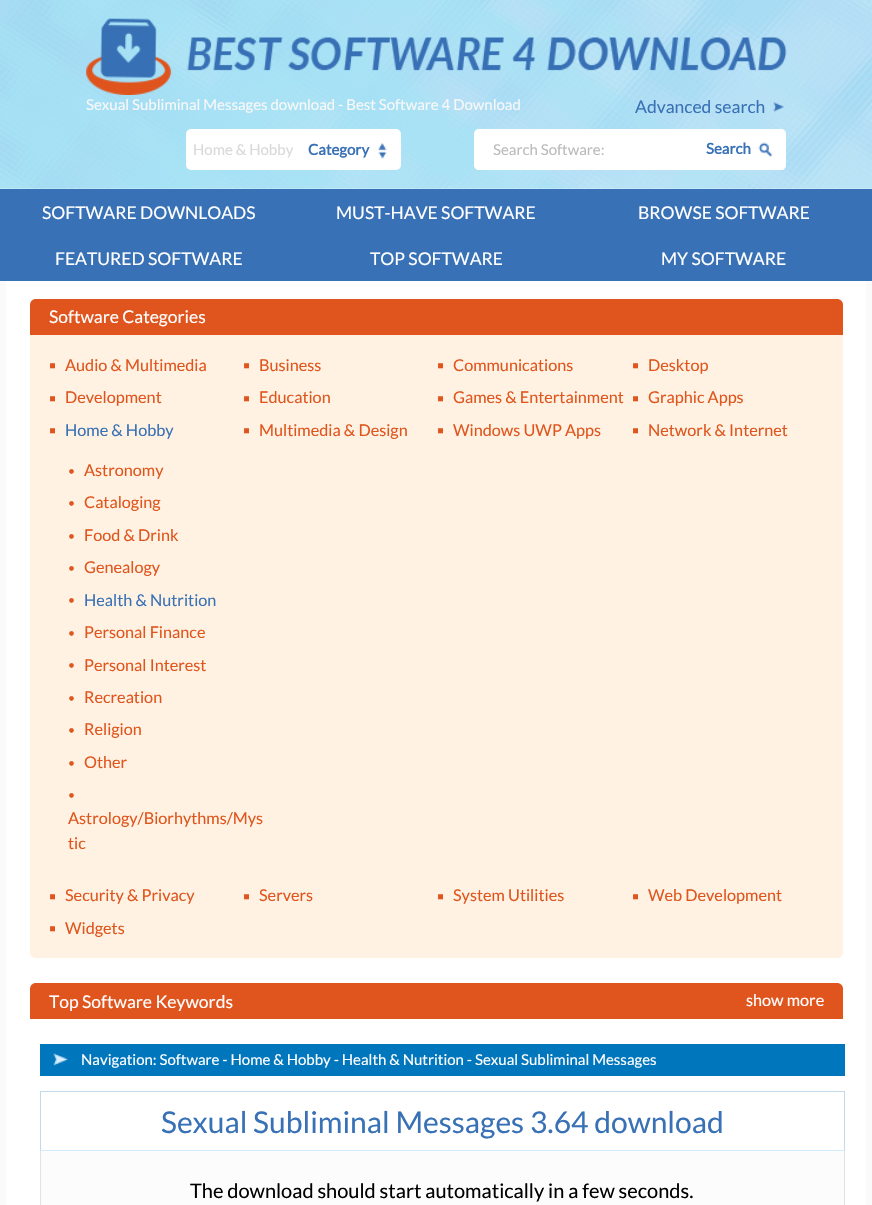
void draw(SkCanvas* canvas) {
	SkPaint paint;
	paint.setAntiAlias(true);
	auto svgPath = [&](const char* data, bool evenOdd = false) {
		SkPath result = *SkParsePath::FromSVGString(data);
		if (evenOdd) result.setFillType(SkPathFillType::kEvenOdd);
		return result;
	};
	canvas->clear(0xfffafafa);
	canvas->drawImageRect(SkImages::DeferredFromEncodedData(SkData::MakeFromFileName("img1.png")), SkRect::MakeXYWH(0, 0, 872, 189), SkSamplingOptions());
	canvas->drawImageRect(SkImages::DeferredFromEncodedData(SkData::MakeFromFileName("img2.png")), SkRect::MakeXYWH(86, 18, 701, 77), SkSamplingOptions());
	SkFont f1(fontMgr->matchFamilyStyle("Lato", SkFontStyle::Normal()), 15);
	f1.setSubpixel(true);
	paint.setColor(0xfff8f8f8);
	canvas->drawString("Sexual Subliminal Messages download - Best Software 4 Download", 86, 110, f1, paint);
	SkFont f2(fontMgr->matchFamilyStyle("Lato", SkFontStyle::Normal()), 17.5);
	f2.setSubpixel(true);
	paint.setColor(0xff3871b5);
	canvas->drawString("Advanced search", 635, 113, f2, paint);
	canvas->drawImageRect(SkImages::DeferredFromEncodedData(SkData::MakeFromFileName("img3.png")), SkRect::MakeXYWH(773, 102, 11, 10), SkSamplingOptions());
	paint.setColor(0xffffffff);
	canvas->drawRoundRect(SkRect::MakeXYWH(186, 129, 215, 41), 5, 5, paint);
	paint.setColor(0xffd9d9d9);
	canvas->drawString("Home & Hobby", 193, 155, f1, paint);
	SkFont f3(fontMgr->matchFamilyStyle("Lato", SkFontStyle::Bold()), 15);
	f3.setSubpixel(true);
	paint.setColor(0xff3871b5);
	canvas->drawString("Category", 308, 155, f3, paint);
	canvas->drawImageRect(SkImages::DeferredFromEncodedData(SkData::MakeFromFileName("img4.png")), SkRect::MakeXYWH(378, 142, 9, 17), SkSamplingOptions());
	paint.setColor(0xffffffff);
	canvas->drawPath(svgPath("M479 129H699V170H479C476 170 474 168 474 165V134C474 131 476 129 479 129Z"), paint);
	paint.setColor(0xffbbbbbb);
	canvas->drawString("Search Software:", 493, 155, f1, paint);
	paint.setColor(0xffffffff);
	canvas->drawPath(svgPath("M699 129H781C784 129 786 131 786 134V165C786 168 784 170 781 170H699Z"), paint);
	paint.setColor(0xff3871b5);
	canvas->drawString("Search", 706, 154, f3, paint);
	canvas->drawImageRect(SkImages::DeferredFromEncodedData(SkData::MakeFromFileName("img5.png")), SkRect::MakeXYWH(758, 142, 15, 15), SkSamplingOptions());
	canvas->drawRect(SkRect::MakeXYWH(0, 189, 872, 92), paint);
	paint.setColor(0xffffffff);
	canvas->drawString("SOFTWARE DOWNLOADS", 42, 219, f2, paint);
	canvas->drawString("MUST-HAVE SOFTWARE", 336, 219, f2, paint);
	canvas->drawString("BROWSE SOFTWARE", 638, 219, f2, paint);
	canvas->drawString("FEATURED SOFTWARE", 55, 265, f2, paint);
	canvas->drawString("TOP SOFTWARE", 370, 265, f2, paint);
	canvas->drawString("MY SOFTWARE", 661, 265, f2, paint);
	canvas->drawRect(SkRect::MakeXYWH(6, 281, 860, 924), paint);
	paint.setColor(0xffe0551d);
	canvas->drawPath(svgPath("M36 299H837C840.5 299 843 301.5 843 305V335H30V305C30 301.5 32.5 299 36 299Z"), paint);
	paint.setColor(0xffffffff);
	canvas->drawString("Software Categories", 49, 323, f2, paint);
	paint.setColor(0xfffff2e2);
	canvas->drawPath(svgPath("M30 335H843V952C843 955.5 840.5 958 837 958H36C32.5 958 30 955.5 30 952Z"), paint);
	SkFont f4(fontMgr->matchFamilyStyle("Liberation Sans", SkFontStyle::Normal()), 20);
	f4.setSubpixel(true);
	paint.setColor(0xffe0551d);
	canvas->drawString("▪", 49, 372, f4, paint);
	SkFont f5(fontMgr->matchFamilyStyle("Lato", SkFontStyle::Normal()), 16.25);
	f5.setSubpixel(true);
	canvas->drawString("Audio & Multimedia", 65, 371, f5, paint);
	canvas->drawString("▪", 243, 372, f4, paint);
	canvas->drawString("Business", 259, 371, f5, paint);
	canvas->drawString("▪", 437, 372, f4, paint);
	canvas->drawString("Communications", 453, 371, f5, paint);
	canvas->drawString("▪", 632, 372, f4, paint);
	canvas->drawString("Desktop", 648, 371, f5, paint);
	canvas->drawString("▪", 49, 405, f4, paint);
	canvas->drawString("Development", 65, 403, f5, paint);
	canvas->drawString("▪", 243, 405, f4, paint);
	canvas->drawString("Education", 259, 403, f5, paint);
	canvas->drawString("▪", 437, 405, f4, paint);
	canvas->drawString("Games & Entertainment", 453, 403, f5, paint);
	canvas->drawString("▪", 632, 405, f4, paint);
	canvas->drawString("Graphic Apps", 648, 403, f5, paint);
	canvas->drawString("▪", 49, 437, f4, paint);
	paint.setColor(0xff3871b5);
	canvas->drawString("Home & Hobby", 65, 436, f5, paint);
	SkFont f6(fontMgr->matchFamilyStyle("Lato", SkFontStyle::Normal()), 12);
	f6.setSubpixel(true);
	paint.setColor(0xffe0551d);
	canvas->drawString("•", 68, 475, f6, paint);
	canvas->drawString("Astronomy", 84, 476, f5, paint);
	canvas->drawString("•", 68, 507, f6, paint);
	canvas->drawString("Cataloging", 84, 508, f5, paint);
	canvas->drawString("•", 68, 540, f6, paint);
	canvas->drawString("Food & Drink", 84, 541, f5, paint);
	canvas->drawString("•", 68, 572, f6, paint);
	canvas->drawString("Genealogy", 84, 573, f5, paint);
	canvas->drawString("•", 68, 604, f6, paint);
	paint.setColor(0xff3871b5);
	canvas->drawString("Health & Nutrition", 84, 606, f5, paint);
	paint.setColor(0xffe0551d);
	canvas->drawString("•", 68, 637, f6, paint);
	canvas->drawString("Personal Finance", 84, 638, f5, paint);
	canvas->drawString("•", 68, 669, f6, paint);
	canvas->drawString("Personal Interest", 84, 671, f5, paint);
	canvas->drawString("•", 68, 702, f6, paint);
	canvas->drawString("Recreation", 84, 703, f5, paint);
	canvas->drawString("•", 68, 734, f6, paint);
	canvas->drawString("Religion", 84, 735, f5, paint);
	canvas->drawString("•", 68, 767, f6, paint);
	canvas->drawString("Other", 84, 768, f5, paint);
	canvas->drawString("•", 68, 799, f6, paint);
	canvas->drawString("Astrology/Biorhythms/Mys", 68, 824, f5, paint);
	canvas->drawString("tic", 68, 849, f5, paint);
	canvas->drawString("▪", 243, 437, f4, paint);
	canvas->drawString("Multimedia & Design", 259, 436, f5, paint);
	canvas->drawString("▪", 437, 437, f4, paint);
	canvas->drawString("Windows UWP Apps", 453, 436, f5, paint);
	canvas->drawString("▪", 632, 437, f4, paint);
	canvas->drawString("Network & Internet", 648, 436, f5, paint);
	canvas->drawString("▪", 49, 903, f4, paint);
	canvas->drawString("Security & Privacy", 65, 901, f5, paint);
	canvas->drawString("▪", 243, 903, f4, paint);
	canvas->drawString("Servers", 259, 901, f5, paint);
	canvas->drawString("▪", 437, 903, f4, paint);
	canvas->drawString("System Utilities", 453, 901, f5, paint);
	canvas->drawString("▪", 632, 903, f4, paint);
	canvas->drawString("Web Development", 648, 901, f5, paint);
	canvas->drawString("▪", 49, 935, f4, paint);
	canvas->drawString("Widgets", 65, 934, f5, paint);
	canvas->drawPath(svgPath("M36 983H837C840.5 983 843 985.5 843 989V1019H30V989C30 985.5 32.5 983 36 983Z"), paint);
	paint.setColor(0xffffffff);
	canvas->drawString("Top Software Keywords", 49, 1008, f2, paint);
	canvas->drawString("show more", 746, 1006, f5, paint);
	paint.setColor(0xff0076bc);
	canvas->drawRect(SkRect::MakeXYWH(40, 1044, 805, 32), paint);
	canvas->drawImageRect(SkImages::DeferredFromEncodedData(SkData::MakeFromFileName("img6.png")), SkRect::MakeXYWH(53, 1053, 15, 13), SkSamplingOptions());
	paint.setColor(0xffffffff);
	canvas->drawString("Navigation: Software - Home & Hobby - Health & Nutrition - Sexual Subliminal Messages", 81, 1065, f1, paint);
	paint.setColor(0xffc0daeb);
	canvas->drawRect(SkRect::MakeXYWH(40, 1091, 805, 1), paint);
	canvas->drawRect(SkRect::MakeXYWH(844, 1091, 1, 59), paint);
	canvas->drawRect(SkRect::MakeXYWH(40, 1091, 1, 59), paint);
	SkFont f7(fontMgr->matchFamilyStyle("Lato", SkFontStyle::Normal()), 30);
	f7.setSubpixel(true);
	paint.setColor(0xff3871b5);
	canvas->drawString("Sexual Subliminal Messages 3.64 download", 161, 1133, f7, paint);
	paint.setColor(0xfffcfcfc);
	canvas->drawRect(SkRect::MakeXYWH(41, 1151, 803, 54), paint);
	paint.setColor(0xffd2ecfd);
	canvas->drawRect(SkRect::MakeXYWH(40, 1150, 805, 1), paint);
	paint.setColor(0xffe2e2e2);
	canvas->drawRect(SkRect::MakeXYWH(844, 1150, 1, 55), paint);
	canvas->drawRect(SkRect::MakeXYWH(40, 1150, 1, 55), paint);
	SkFont f8(fontMgr->matchFamilyStyle("Lato", SkFontStyle::Normal()), 20);
	f8.setSubpixel(true);
	paint.setColor(0xff000000);
	canvas->drawString("The download should start automatically in a few seconds.", 190, 1198, f8, paint);
}
